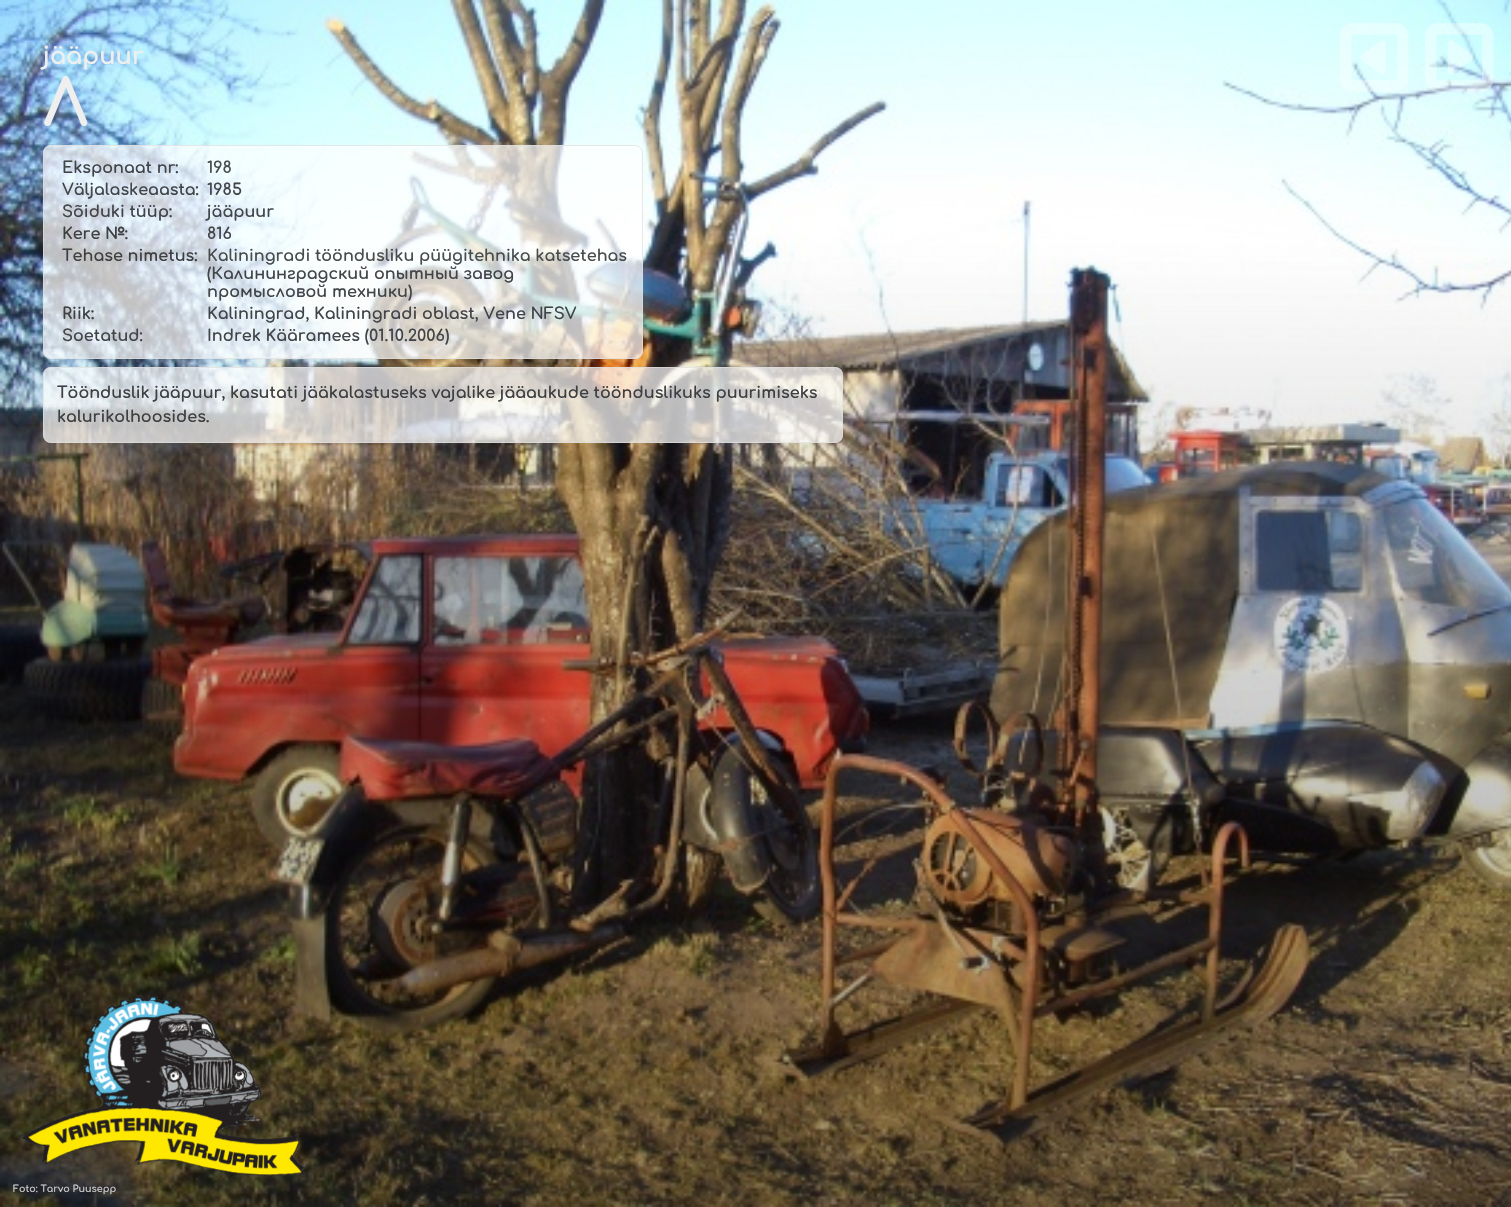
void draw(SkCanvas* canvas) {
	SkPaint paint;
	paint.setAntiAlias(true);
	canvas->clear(0xffffffff);
	canvas->drawImageRect(SkImages::DeferredFromEncodedData(SkData::MakeFromFileName("img1.png")), SkRect::MakeXYWH(0, 0, 1511, 1207), SkSamplingOptions());
	SkFont f1(fontMgr->matchFamilyStyle("Comfortaa", SkFontStyle::Bold()), 24);
	f1.setSubpixel(true);
	paint.setColor(0xffefefef);
	canvas->drawString("jääpuur", 43, 64, f1, paint);
	SkFont f2(fontMgr->matchFamilyStyle("Comfortaa", SkFontStyle::Bold()), 64);
	f2.setSubpixel(true);
	canvas->drawString("Л", 43, 126, f2, paint);
	paint.setColor(0xb3ffffff);
	canvas->drawRoundRect(SkRect::MakeXYWH(43, 145, 600, 214), 8, 8, paint);
	paint.setStroke(true);
	paint.setStrokeWidth(1);
	paint.setColor(0xb3dddddd);
	canvas->drawRoundRect(SkRect::MakeXYWH(43.5, 145.5, 599, 213), 7.5, 7.5, paint);
	SkFont f3(fontMgr->matchFamilyStyle("Comfortaa", SkFontStyle::Bold()), 16);
	f3.setSubpixel(true);
	paint.setStroke(false);
	paint.setColor(0xff414448);
	canvas->drawString("Eksponaat nr:", 62, 173, f3, paint);
	paint.setColor(0xff484c4c);
	canvas->drawString("198", 207, 173, f3, paint);
	paint.setColor(0xff414448);
	canvas->drawString("Väljalaskeaasta:", 62, 195, f3, paint);
	canvas->drawString("1985", 207, 195, f3, paint);
	canvas->drawString("Sõiduki tüüp:", 62, 217, f3, paint);
	canvas->drawString("jääpuur", 207, 217, f3, paint);
	paint.setColor(0xff3d3f41);
	canvas->drawString("Kere №:", 62, 239, f3, paint);
	paint.setColor(0xff414448);
	canvas->drawString("816", 207, 239, f3, paint);
	paint.setColor(0xff3d3f41);
	canvas->drawString("Tehase nimetus:", 62, 261, f3, paint);
	paint.setColor(0xff484c4c);
	canvas->drawString("Kaliningradi tööndusliku püügitehnika katsetehas", 207, 261, f3, paint);
	paint.setColor(0xff414448);
	canvas->drawString("(Калининградский опытный завод", 207, 279, f3, paint);
	canvas->drawString("промысловой техники)", 207, 297, f3, paint);
	paint.setColor(0xff3d3f41);
	canvas->drawString("Riik:", 62, 319, f3, paint);
	paint.setColor(0xff414448);
	canvas->drawString("Kaliningrad, Kaliningradi oblast, Vene NFSV", 207, 319, f3, paint);
	canvas->drawString("Soetatud:", 62, 341, f3, paint);
	canvas->drawString("Indrek Kääramees (01.10.2006)", 207, 341, f3, paint);
	paint.setColor(0xb3ffffff);
	canvas->drawRoundRect(SkRect::MakeXYWH(43, 367, 800, 76), 8, 8, paint);
	paint.setStroke(true);
	paint.setColor(0xb3dddddd);
	canvas->drawRoundRect(SkRect::MakeXYWH(43.5, 367.5, 799, 75), 7.5, 7.5, paint);
	paint.setStroke(false);
	paint.setColor(0xff3d3f41);
	canvas->drawString("Töönduslik jääpuur, kasutati jääkalastuseks vajalike jääaukude töönduslikuks puurimiseks", 57, 398, f3, paint);
	canvas->drawString("kalurikolhoosides.", 57, 422, f3, paint);
	canvas->drawImageRect(SkImages::DeferredFromEncodedData(SkData::MakeFromFileName("img2.png")), SkRect::MakeXYWH(1340, 23, 69, 69), SkSamplingOptions());
	canvas->drawImageRect(SkImages::DeferredFromEncodedData(SkData::MakeFromFileName("img3.png")), SkRect::MakeXYWH(1425, 23, 69, 69), SkSamplingOptions());
	canvas->drawImageRect(SkImages::DeferredFromEncodedData(SkData::MakeFromFileName("img4.png")), SkRect::MakeXYWH(21, 995, 284, 181), SkSamplingOptions());
	SkFont f4(fontMgr->matchFamilyStyle("Comfortaa", SkFontStyle::Bold()), 9.6);
	f4.setSubpixel(true);
	paint.setColor(0xffc9c9c9);
	canvas->drawString("Foto: Tarvo Puusepp", 13, 1192, f4, paint);
}
